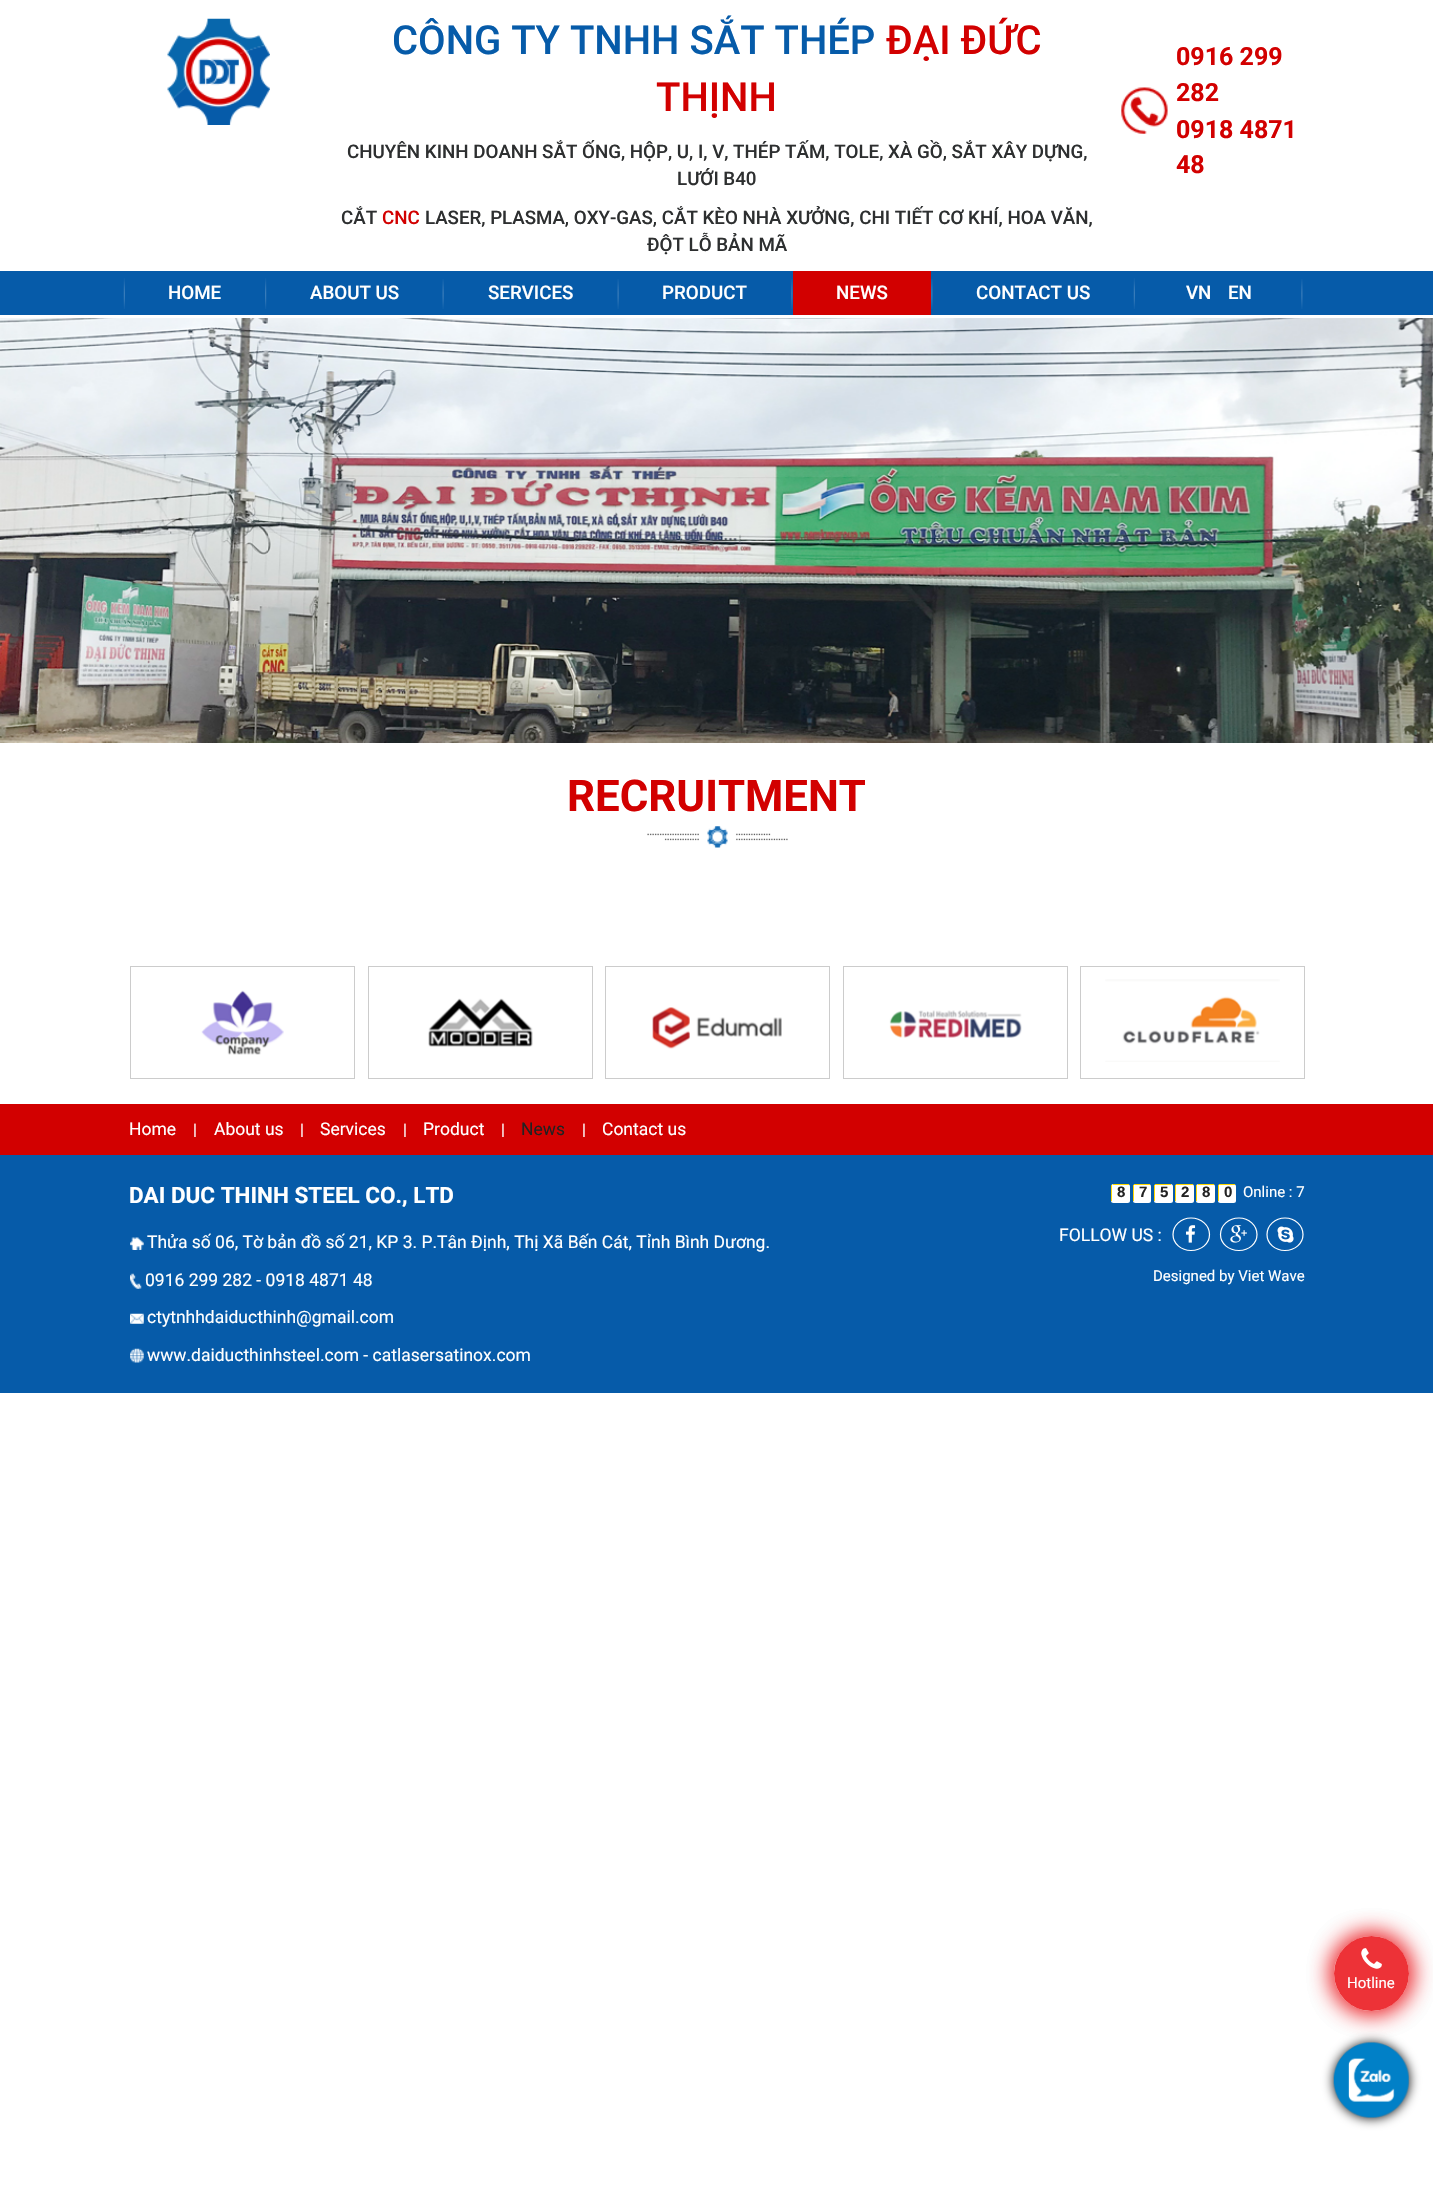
void draw(SkCanvas* canvas) {
	SkPaint paint;
	paint.setAntiAlias(true);
	auto svgPath = [&](const char* data, bool evenOdd = false) {
		SkPath result = *SkParsePath::FromSVGString(data);
		if (evenOdd) result.setFillType(SkPathFillType::kEvenOdd);
		return result;
	};
	canvas->clear(0xffffffff);
	canvas->drawImageRect(SkImages::DeferredFromEncodedData(SkData::MakeFromFileName("img1.png")), SkRect::MakeXYWH(167, 18, 103, 107), SkSamplingOptions());
	SkFont f1(fontMgr->matchFamilyStyle("Roboto", SkFontStyle(500, SkFontStyle::kNormal_Width, SkFontStyle::kUpright_Slant)), 40);
	f1.setSubpixel(true);
	paint.setColor(0xff065ba9);
	canvas->drawString("CÔNG TY TNHH SẮT THÉP", 392, 54, f1, paint);
	paint.setColor(0xffd20000);
	canvas->drawString("ĐẠI ĐỨC", 886, 54, f1, paint);
	canvas->drawString("THỊNH", 656, 111, f1, paint);
	SkFont f2(fontMgr->matchFamilyStyle("Roboto", SkFontStyle(500, SkFontStyle::kNormal_Width, SkFontStyle::kUpright_Slant)), 18.75);
	f2.setSubpixel(true);
	paint.setColor(0xff2d2f30);
	canvas->drawString("CHUYÊN KINH DOANH SẮT ỐNG, HỘP, U, I, V, THÉP TẤM, TOLE, XÀ GỒ, SẮT XÂY DỰNG,", 347, 158, f2, paint);
	canvas->drawString("LƯỚI B40", 677, 185, f2, paint);
	canvas->drawString("CẮT", 341, 224, f2, paint);
	paint.setColor(0xffd20000);
	canvas->drawString("CNC", 382, 224, f2, paint);
	paint.setColor(0xff2d2f30);
	canvas->drawString("LASER, PLASMA, OXY-GAS, CẮT KÈO NHÀ XƯỞNG, CHI TIẾT CƠ KHÍ, HOA VĂN,", 425, 224, f2, paint);
	canvas->drawString("ĐỘT LỖ BẢN MÃ", 647, 251, f2, paint);
	canvas->drawImageRect(SkImages::DeferredFromEncodedData(SkData::MakeFromFileName("img2.png")), SkRect::MakeXYWH(1121, 87, 47, 47), SkSamplingOptions());
	SkFont f3(fontMgr->matchFamilyStyle("Roboto", SkFontStyle::Bold()), 25);
	f3.setSubpixel(true);
	paint.setColor(0xffd20000);
	canvas->drawString("0916 299", 1176, 65, f3, paint);
	canvas->drawString("282", 1176, 101, f3, paint);
	canvas->drawString("0918 4871", 1176, 138, f3, paint);
	canvas->drawString("48", 1176, 173, f3, paint);
	paint.setColor(0xff065ba9);
	canvas->drawRect(SkRect::MakeXYWH(0, 271, 1433, 44), paint);
	canvas->drawImageRect(SkImages::DeferredFromEncodedData(SkData::MakeFromFileName("img3.png")), SkRect::MakeXYWH(123, 278, 2, 31), SkSamplingOptions());
	paint.setColor(0xffffffff);
	canvas->drawString("HOME", 168, 299, f2, paint);
	canvas->drawImageRect(SkImages::DeferredFromEncodedData(SkData::MakeFromFileName("img4.png")), SkRect::MakeXYWH(265, 278, 2, 31), SkSamplingOptions());
	canvas->drawString("ABOUT US", 310, 299, f2, paint);
	canvas->drawImageRect(SkImages::DeferredFromEncodedData(SkData::MakeFromFileName("img5.png")), SkRect::MakeXYWH(442, 279, 2, 30), SkSamplingOptions());
	canvas->drawString("SERVICES", 488, 299, f2, paint);
	canvas->drawImageRect(SkImages::DeferredFromEncodedData(SkData::MakeFromFileName("img5.png")), SkRect::MakeXYWH(617, 279, 2, 30), SkSamplingOptions());
	canvas->drawString("PRODUCT", 662, 299, f2, paint);
	canvas->drawImageRect(SkImages::DeferredFromEncodedData(SkData::MakeFromFileName("img6.png")), SkRect::MakeXYWH(791, 279, 2, 30), SkSamplingOptions());
	paint.setColor(0xffd20000);
	canvas->drawRect(SkRect::MakeXYWH(793, 271, 138, 44), paint);
	paint.setColor(0xffffffff);
	canvas->drawString("NEWS", 836, 299, f2, paint);
	canvas->drawImageRect(SkImages::DeferredFromEncodedData(SkData::MakeFromFileName("img6.png")), SkRect::MakeXYWH(931, 279, 2, 30), SkSamplingOptions());
	canvas->drawString("CONTACT US", 976, 299, f2, paint);
	canvas->drawImageRect(SkImages::DeferredFromEncodedData(SkData::MakeFromFileName("img3.png")), SkRect::MakeXYWH(1133, 278, 2, 31), SkSamplingOptions());
	canvas->drawString("VN", 1186, 299, f2, paint);
	canvas->drawString("EN", 1228, 299, f2, paint);
	canvas->drawImageRect(SkImages::DeferredFromEncodedData(SkData::MakeFromFileName("img6.png")), SkRect::MakeXYWH(1301, 279, 2, 30), SkSamplingOptions());
	canvas->drawImageRect(SkImages::DeferredFromEncodedData(SkData::MakeFromFileName("img7.png")), SkRect::MakeXYWH(0, 318, 1433, 425), SkSamplingOptions());
	canvas->drawImageRect(SkImages::DeferredFromEncodedData(SkData::MakeFromFileName("img8.png")), SkRect::MakeXYWH(647, 826, 141, 22), SkSamplingOptions());
	SkFont f4(fontMgr->matchFamilyStyle("Roboto", SkFontStyle::Bold()), 43.75);
	f4.setSubpixel(true);
	paint.setColor(0xffd20000);
	canvas->drawString("RECRUITMENT", 567, 811, f4, paint);
	paint.setStroke(true);
	paint.setStrokeWidth(1);
	paint.setColor(0xffcccccc);
	canvas->drawRect(SkRect::MakeXYWH(130.5, 966.5, 224, 112), paint);
	canvas->drawImageRect(SkImages::DeferredFromEncodedData(SkData::MakeFromFileName("img9.png")), SkRect::MakeXYWH(201, 990, 83, 65), SkSamplingOptions());
	canvas->drawRect(SkRect::MakeXYWH(368.5, 966.5, 224, 112), paint);
	canvas->drawImageRect(SkImages::DeferredFromEncodedData(SkData::MakeFromFileName("img10.png")), SkRect::MakeXYWH(428, 998, 105, 49), SkSamplingOptions());
	canvas->drawRect(SkRect::MakeXYWH(605.5, 966.5, 224, 112), paint);
	canvas->drawImageRect(SkImages::DeferredFromEncodedData(SkData::MakeFromFileName("img11.png")), SkRect::MakeXYWH(652, 1007, 130, 42), SkSamplingOptions());
	canvas->drawRect(SkRect::MakeXYWH(843.5, 966.5, 224, 112), paint);
	canvas->drawImageRect(SkImages::DeferredFromEncodedData(SkData::MakeFromFileName("img12.png")), SkRect::MakeXYWH(889, 1010, 133, 28), SkSamplingOptions());
	canvas->drawRect(SkRect::MakeXYWH(1080.5, 966.5, 224, 112), paint);
	canvas->drawImageRect(SkImages::DeferredFromEncodedData(SkData::MakeFromFileName("img13.png")), SkRect::MakeXYWH(1105, 979, 175, 83), SkSamplingOptions());
	paint.setStroke(false);
	paint.setColor(0xffd20000);
	canvas->drawRect(SkRect::MakeXYWH(0, 1104, 1433, 51), paint);
	SkFont f5(fontMgr->matchFamilyStyle("Roboto", SkFontStyle::Normal()), 17.5);
	f5.setSubpixel(true);
	paint.setColor(0xffffffff);
	canvas->drawString("Home", 129, 1135, f5, paint);
	SkFont f6(fontMgr->matchFamilyStyle("Roboto", SkFontStyle::Normal()), 16);
	f6.setSubpixel(true);
	canvas->drawString("|", 193, 1135, f6, paint);
	canvas->drawString("About us", 214, 1135, f5, paint);
	canvas->drawString("|", 300, 1135, f6, paint);
	canvas->drawString("Services", 320, 1135, f5, paint);
	canvas->drawString("|", 403, 1135, f6, paint);
	canvas->drawString("Product", 423, 1135, f5, paint);
	canvas->drawString("|", 501, 1135, f6, paint);
	paint.setColor(0xff222222);
	canvas->drawString("News", 521, 1135, f5, paint);
	paint.setColor(0xffffffff);
	canvas->drawString("|", 582, 1135, f6, paint);
	canvas->drawString("Contact us", 602, 1135, f5, paint);
	paint.setColor(0xff065ba9);
	canvas->drawRect(SkRect::MakeXYWH(0, 1155, 1433, 238), paint);
	SkFont f7(fontMgr->matchFamilyStyle("Roboto", SkFontStyle::Bold()), 22.5);
	f7.setSubpixel(true);
	paint.setColor(0xffffffff);
	canvas->drawString("DAI DUC THINH STEEL CO., LTD", 129, 1203, f7, paint);
	canvas->drawImageRect(SkImages::DeferredFromEncodedData(SkData::MakeFromFileName("img14.png")), SkRect::MakeXYWH(130, 1237, 14, 13), SkSamplingOptions());
	canvas->drawString("Thửa số 06, Tờ bản đồ số 21, KP 3. P.Tân Định, Thị Xã Bến Cát, Tỉnh Bình Dương.", 147, 1248, f5, paint);
	canvas->drawImageRect(SkImages::DeferredFromEncodedData(SkData::MakeFromFileName("img15.png")), SkRect::MakeXYWH(130, 1273, 12, 16), SkSamplingOptions());
	canvas->drawString("0916 299 282 - 0918 4871 48", 145, 1286, f5, paint);
	canvas->drawImageRect(SkImages::DeferredFromEncodedData(SkData::MakeFromFileName("img16.png")), SkRect::MakeXYWH(130, 1313, 14, 11), SkSamplingOptions());
	canvas->drawString("ctytnhhdaiducthinh@gmail.com", 147, 1323, f5, paint);
	canvas->drawImageRect(SkImages::DeferredFromEncodedData(SkData::MakeFromFileName("img17.png")), SkRect::MakeXYWH(130, 1348, 14, 15), SkSamplingOptions());
	canvas->drawString("www.daiducthinhsteel.com - catlasersatinox.com", 147, 1361, f5, paint);
	canvas->drawRoundRect(SkRect::MakeXYWH(1111, 1184, 19, 19), 2.5, 2.5, paint);
	paint.setColor(0xffffd800);
	canvas->drawRect(SkRect::MakeXYWH(1113, 1184, 16, 1), paint);
	canvas->drawRect(SkRect::MakeXYWH(1111, 1185, 1, 16), paint);
	SkFont f8(fontMgr->matchFamilyStyle("Liberation Sans", SkFontStyle::Bold()), 15);
	f8.setSubpixel(true);
	paint.setColor(0xff222222);
	canvas->drawString("8", 1117, 1197, f8, paint);
	paint.setColor(0xffffffff);
	canvas->drawRoundRect(SkRect::MakeXYWH(1133, 1184, 18, 19), 2.5, 2.5, paint);
	paint.setColor(0xffffd800);
	canvas->drawRect(SkRect::MakeXYWH(1134, 1184, 16, 1), paint);
	canvas->drawRect(SkRect::MakeXYWH(1133, 1185, 1, 16), paint);
	paint.setColor(0xff222222);
	canvas->drawString("7", 1139, 1197, f8, paint);
	paint.setColor(0xffffffff);
	canvas->drawRoundRect(SkRect::MakeXYWH(1154, 1184, 19, 19), 2.5, 2.5, paint);
	paint.setColor(0xffffd800);
	canvas->drawRect(SkRect::MakeXYWH(1155, 1184, 16, 1), paint);
	canvas->drawRect(SkRect::MakeXYWH(1154, 1185, 1, 16), paint);
	paint.setColor(0xff222222);
	canvas->drawString("5", 1160, 1197, f8, paint);
	paint.setColor(0xffffffff);
	canvas->drawRoundRect(SkRect::MakeXYWH(1175, 1184, 19, 19), 2.5, 2.5, paint);
	paint.setColor(0xffffd800);
	canvas->drawRect(SkRect::MakeXYWH(1176, 1184, 17, 1), paint);
	canvas->drawRect(SkRect::MakeXYWH(1175, 1185, 1, 16), paint);
	paint.setColor(0xff222222);
	canvas->drawString("2", 1181, 1197, f8, paint);
	paint.setColor(0xffffffff);
	canvas->drawRoundRect(SkRect::MakeXYWH(1196, 1184, 19, 19), 2.5, 2.5, paint);
	paint.setColor(0xffffd800);
	canvas->drawRect(SkRect::MakeXYWH(1198, 1184, 16, 1), paint);
	canvas->drawRect(SkRect::MakeXYWH(1196, 1185, 1, 16), paint);
	paint.setColor(0xff222222);
	canvas->drawString("8", 1202, 1197, f8, paint);
	paint.setColor(0xffffffff);
	canvas->drawRoundRect(SkRect::MakeXYWH(1218, 1184, 18, 19), 2.5, 2.5, paint);
	paint.setColor(0xffffd800);
	canvas->drawRect(SkRect::MakeXYWH(1219, 1184, 16, 1), paint);
	canvas->drawRect(SkRect::MakeXYWH(1218, 1185, 1, 16), paint);
	paint.setColor(0xff222222);
	canvas->drawString("0", 1224, 1197, f8, paint);
	SkFont f9(fontMgr->matchFamilyStyle("Roboto", SkFontStyle::Normal()), 15);
	f9.setSubpixel(true);
	paint.setColor(0xffffffff);
	canvas->drawString("Online : 7", 1243, 1197, f9, paint);
	canvas->drawString("FOLLOW US :", 1059, 1241, f5, paint);
	paint.setStroke(true);
	paint.setStrokeWidth(1.2);
	canvas->drawPath(svgPath("M1191 1218C1201.5 1218 1209.5 1225.5 1209.5 1234.5C1209.5 1243.5 1201.5 1250.5 1191 1250.5C1181 1250.5 1173 1243.5 1173 1234.5C1173 1225.5 1181 1218 1191 1218Z"), paint);
	canvas->drawImageRect(SkImages::DeferredFromEncodedData(SkData::MakeFromFileName("img18.png")), SkRect::MakeXYWH(1186, 1225, 10, 18), SkSamplingOptions());
	canvas->drawPath(svgPath("M1239 1218C1249 1218 1257 1225.5 1257 1234.5C1257 1243.5 1249 1250.5 1239 1250.5C1228.5 1250.5 1220.5 1243.5 1220.5 1234.5C1220.5 1225.5 1228.5 1218 1239 1218Z"), paint);
	canvas->drawImageRect(SkImages::DeferredFromEncodedData(SkData::MakeFromFileName("img19.png")), SkRect::MakeXYWH(1230, 1225, 17, 18), SkSamplingOptions());
	canvas->drawPath(svgPath("M1285 1218C1295 1218 1303 1225.5 1303 1234.5C1303 1243.5 1295 1250.5 1285 1250.5C1275 1250.5 1267 1243.5 1267 1234.5C1267 1225.5 1275 1218 1285 1218Z"), paint);
	canvas->drawImageRect(SkImages::DeferredFromEncodedData(SkData::MakeFromFileName("img20.png")), SkRect::MakeXYWH(1277, 1226, 17, 17), SkSamplingOptions());
	paint.setStroke(false);
	canvas->drawString("Designed by Viet Wave", 1153, 1281, f9, paint);
	paint.setColor(0xffed3237);
	canvas->drawCircle(1371.5, 1973.5, 37.5, paint);
	paint.setColor(0xff000000);
	paint.setMaskFilter(SkMaskFilter::MakeBlur(kNormal_SkBlurStyle, 6));
	canvas->drawRoundRect(SkRect::MakeXYWH(1334, 2043, 75, 75), 37.5, 37.5, paint);
	paint.setMaskFilter(nullptr);
	canvas->drawImageRect(SkImages::DeferredFromEncodedData(SkData::MakeFromFileName("img22.png")), SkRect::MakeXYWH(1333, 2042, 76, 76), SkSamplingOptions());
	canvas->save();
	canvas->clipPath(svgPath("M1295 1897H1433V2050H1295ZM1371.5 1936C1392 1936 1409 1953 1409 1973.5C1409 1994 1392 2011 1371.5 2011C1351 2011 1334 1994 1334 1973.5C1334 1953 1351 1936 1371.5 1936Z", true), true);
	paint.setColor(0xffed3237);
	paint.setMaskFilter(SkMaskFilter::MakeBlur(kNormal_SkBlurStyle, 12.5));
	canvas->drawRoundRect(SkRect::MakeXYWH(1334, 1936, 75, 75), 37.5, 37.5, paint);
	paint.setMaskFilter(nullptr);
	canvas->restore();
	canvas->drawImageRect(SkImages::DeferredFromEncodedData(SkData::MakeFromFileName("img21.png")), SkRect::MakeXYWH(1361, 1948, 21, 21), SkSamplingOptions());
	canvas->save();
	canvas->clipPath(svgPath("M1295 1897H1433V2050H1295ZM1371.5 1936C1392 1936 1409 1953 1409 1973.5C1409 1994 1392 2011 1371.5 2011C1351 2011 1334 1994 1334 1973.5C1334 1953 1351 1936 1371.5 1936Z", true), true);
	paint.setMaskFilter(SkMaskFilter::MakeBlur(kNormal_SkBlurStyle, 12.5));
	canvas->drawRoundRect(SkRect::MakeXYWH(1334, 1936, 75, 75), 37.5, 37.5, paint);
	paint.setMaskFilter(nullptr);
	canvas->restore();
	paint.setColor(0xffffffff);
	canvas->drawString("Hotline", 1347, 1988, f9, paint);
}
